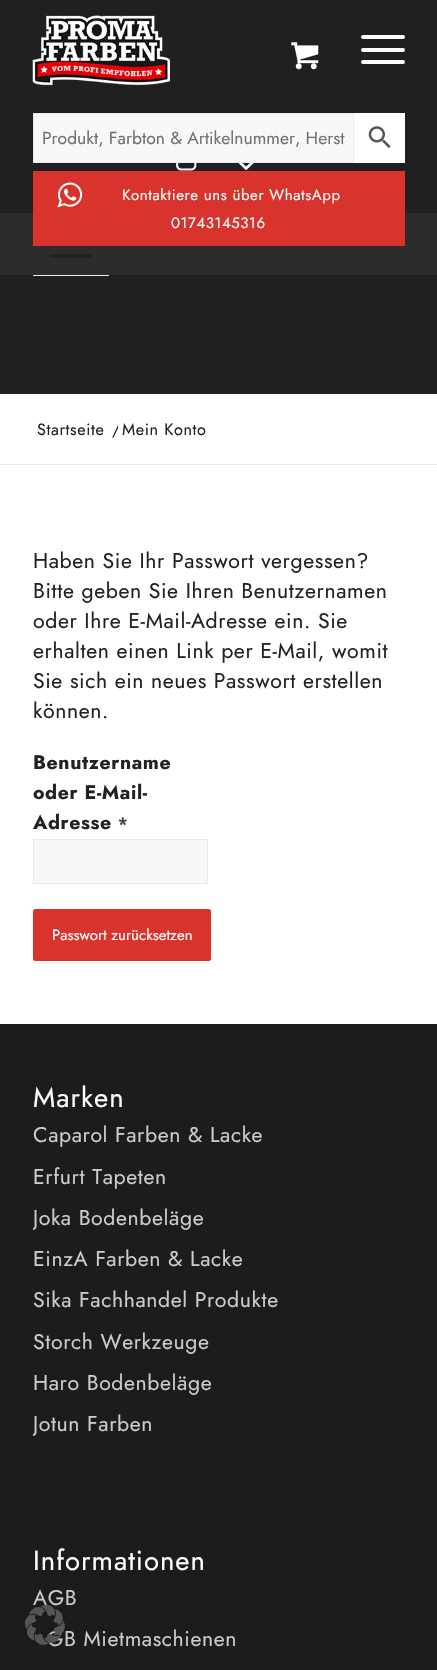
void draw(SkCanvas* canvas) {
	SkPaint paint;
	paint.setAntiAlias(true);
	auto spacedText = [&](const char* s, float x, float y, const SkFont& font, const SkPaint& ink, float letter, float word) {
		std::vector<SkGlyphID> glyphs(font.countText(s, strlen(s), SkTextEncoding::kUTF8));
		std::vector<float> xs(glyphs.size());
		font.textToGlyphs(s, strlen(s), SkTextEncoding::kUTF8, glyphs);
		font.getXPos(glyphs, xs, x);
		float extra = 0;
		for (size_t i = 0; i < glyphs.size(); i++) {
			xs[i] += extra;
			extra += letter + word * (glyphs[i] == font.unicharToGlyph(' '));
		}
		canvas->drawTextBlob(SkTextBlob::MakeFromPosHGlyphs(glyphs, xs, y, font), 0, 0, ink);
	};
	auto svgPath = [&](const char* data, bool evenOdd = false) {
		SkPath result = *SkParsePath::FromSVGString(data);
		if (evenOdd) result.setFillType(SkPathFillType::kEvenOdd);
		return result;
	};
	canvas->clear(0xffffffff);
	paint.setColor(0xff202020);
	canvas->drawRect(SkRect::MakeXYWH(0, 0, 437, 394), paint);
	canvas->drawImageRect(SkImages::DeferredFromEncodedData(SkData::MakeFromFileName("img1.png")), SkRect::MakeXYWH(32, 15, 138, 71), SkSamplingOptions());
	canvas->drawImageRect(SkImages::DeferredFromEncodedData(SkData::MakeFromFileName("img2.png")), SkRect::MakeXYWH(291, 42, 28, 28), SkSamplingOptions());
	paint.setColor(0xffffffff);
	canvas->drawRoundRect(SkRect::MakeXYWH(361, 48, 44, 4), 2, 2, paint);
	canvas->drawRoundRect(SkRect::MakeXYWH(361, 35, 44, 4), 2, 2, paint);
	canvas->drawRoundRect(SkRect::MakeXYWH(361, 60, 44, 4), 2, 2, paint);
	paint.setStroke(true);
	paint.setStrokeWidth(2.7);
	paint.setStrokeCap(SkPaint::kRound_Cap);
	paint.setStrokeJoin(SkPaint::kRound_Join);
	canvas->drawPath(svgPath("M258 146C254 142 249.5 144 246 147.5L245 146C242 143.5 237 143.5 234.5 146C231.5 149 231.5 154 234.5 157L246 168.5L253.5 161.5C257.5 157.5 264 152 258 146Z"), paint);
	paint.setStroke(false);
	paint.setColor(0xfff8f8f8);
	canvas->drawRect(SkRect::MakeXYWH(33.5, 113.5, 320, 49), paint);
	paint.setStroke(true);
	paint.setStrokeWidth(1);
	paint.setStrokeCap(SkPaint::kButt_Cap);
	paint.setStrokeJoin(SkPaint::kMiter_Join);
	paint.setColor(0xffebebeb);
	canvas->drawRect(SkRect::MakeXYWH(33.5, 113.5, 320, 49), paint);
	SkFont f1(fontMgr->matchFamilyStyle("Jost", SkFontStyle::Normal()), 17.5);
	f1.setSubpixel(true);
	paint.setStroke(false);
	paint.setColor(0xff717171);
	canvas->drawString("Produkt, Farbton & Artikelnummer, Herst", 42, 144, f1, paint);
	paint.setColor(0xffffffff);
	canvas->drawRect(SkRect::MakeXYWH(354, 113, 51, 50), paint);
	canvas->drawImageRect(SkImages::DeferredFromEncodedData(SkData::MakeFromFileName("img3.png")), SkRect::MakeXYWH(368, 126, 23, 22), SkSamplingOptions());
	canvas->drawImageRect(SkImages::DeferredFromEncodedData(SkData::MakeFromFileName("img4.png")), SkRect::MakeXYWH(176, 163, 21, 8), SkSamplingOptions());
	paint.setColor(0xff2c2c2c);
	canvas->drawRect(SkRect::MakeXYWH(0, 213, 437, 62), paint);
	paint.setColor(0xffd8332d);
	canvas->drawRect(SkRect::MakeXYWH(33, 171, 372, 75), paint);
	canvas->drawImageRect(SkImages::DeferredFromEncodedData(SkData::MakeFromFileName("img5.png")), SkRect::MakeXYWH(57, 182, 26, 26), SkSamplingOptions());
	SkFont f2(fontMgr->matchFamilyStyle("Jost", SkFontStyle::Normal()), 15);
	f2.setSubpixel(true);
	paint.setColor(0xffffffff);
	spacedText("Kontaktiere uns über WhatsApp", 122, 200, f2, paint, 0.6, 0);
	spacedText("01743145316", 171, 228, f2, paint, 0.6, 0);
	paint.setColor(0xffebebeb);
	canvas->drawRect(SkRect::MakeXYWH(33, 275, 76, 1), paint);
	paint.setColor(0xff222222);
	canvas->drawRoundRect(SkRect::MakeXYWH(49, 254, 44, 4), 2, 2, paint);
	SkFont f3(fontMgr->matchFamilyStyle("Jost", SkFontStyle::Normal()), 16.25);
	f3.setSubpixel(true);
	spacedText("Startseite", 37, 435, f3, paint, 0.6, 0);
	canvas->save();
	canvas->clipRect(SkRect::MakeXYWH(108, 420, 10, 19));
	spacedText("/", 112, 435, f3, paint, 0.6, 0);
	canvas->restore();
	spacedText("Mein Konto", 122, 435, f3, paint, 0.6, 0);
	paint.setColor(0xffebebeb);
	canvas->drawRect(SkRect::MakeXYWH(0, 464, 437, 1), paint);
	SkFont f4(fontMgr->matchFamilyStyle("Jost", SkFontStyle::Normal()), 21.25);
	f4.setSubpixel(true);
	paint.setColor(0xff222222);
	spacedText("Haben Sie Ihr Passwort vergessen?", 33, 568, f4, paint, 0.6, 0);
	spacedText("Bitte geben Sie Ihren Benutzernamen", 33, 598, f4, paint, 0.6, 0);
	spacedText("oder Ihre E-Mail-Adresse ein. Sie", 33, 628, f4, paint, 0.6, 0);
	spacedText("erhalten einen Link per E-Mail, womit", 33, 658, f4, paint, 0.6, 0);
	spacedText("Sie sich ein neues Passwort erstellen", 33, 688, f4, paint, 0.6, 0);
	spacedText("können.", 33, 718, f4, paint, 0.6, 0);
	SkFont f5(fontMgr->matchFamilyStyle("Jost", SkFontStyle::Bold()), 19.5);
	f5.setSubpixel(true);
	spacedText("Benutzername", 33, 769, f5, paint, 0.6, 0);
	spacedText("oder E-Mail-", 33, 799, f5, paint, 0.6, 0);
	spacedText("Adresse", 33, 829, f5, paint, 0.6, 0);
	SkFont f6(fontMgr->matchFamilyStyle("Jost", SkFontStyle::Bold()), 16.25);
	f6.setSubpixel(true);
	paint.setColor(0xff444444);
	spacedText("*", 118, 829, f6, paint, 0.6, 0);
	paint.setColor(0xfff8f8f8);
	canvas->drawRect(SkRect::MakeXYWH(33.5, 839.5, 174, 44), paint);
	paint.setStroke(true);
	paint.setColor(0xffebebeb);
	canvas->drawRect(SkRect::MakeXYWH(33.5, 839.5, 174, 44), paint);
	paint.setStroke(false);
	paint.setColor(0xffd8332d);
	canvas->drawRoundRect(SkRect::MakeXYWH(33, 909, 178, 52), 2.5, 2.5, paint);
	paint.setColor(0xffffffff);
	canvas->drawString("Passwort zurücksetzen", 52, 940, f2, paint);
	paint.setColor(0xff1c1c1c);
	canvas->drawRect(SkRect::MakeXYWH(0, 1024, 437, 646), paint);
	SkFont f7(fontMgr->matchFamilyStyle("Jost", SkFontStyle::Normal()), 27.5);
	f7.setSubpixel(true);
	paint.setColor(0xffffffff);
	spacedText("Marken", 33, 1107, f7, paint, 1, 0);
	paint.setColor(0xffcccccc);
	spacedText("Caparol Farben & Lacke", 33, 1142, f4, paint, 0.6, 0);
	spacedText("Erfurt Tapeten", 33, 1184, f4, paint, 0.6, 0);
	canvas->save();
	canvas->clipRect(SkRect::MakeXYWH(33, 1083, 372, 362));
	spacedText("Joka Bodenbeläge", 33, 1225, f4, paint, 0.6, 0);
	canvas->restore();
	spacedText("EinzA Farben & Lacke", 33, 1266, f4, paint, 0.6, 0);
	spacedText("Sika Fachhandel Produkte", 33, 1307, f4, paint, 0.6, 0);
	spacedText("Storch Werkzeuge", 33, 1349, f4, paint, 0.6, 0);
	spacedText("Haro Bodenbeläge", 33, 1390, f4, paint, 0.6, 0);
	canvas->save();
	canvas->clipRect(SkRect::MakeXYWH(33, 1083, 372, 362));
	spacedText("Jotun Farben", 33, 1431, f4, paint, 0.6, 0);
	canvas->restore();
	paint.setColor(0xffffffff);
	spacedText("Informationen", 33, 1570, f7, paint, 1, 0);
	paint.setColor(0xffcccccc);
	spacedText("AGB", 33, 1605, f4, paint, 0.6, 0);
	spacedText("GB Mietmaschienen", 47, 1646, f4, paint, 0.6, 0);
	canvas->drawImageRect(SkImages::DeferredFromEncodedData(SkData::MakeFromFileName("img6.png")), SkRect::MakeXYWH(25, 1600, 44, 46), SkSamplingOptions());
}
